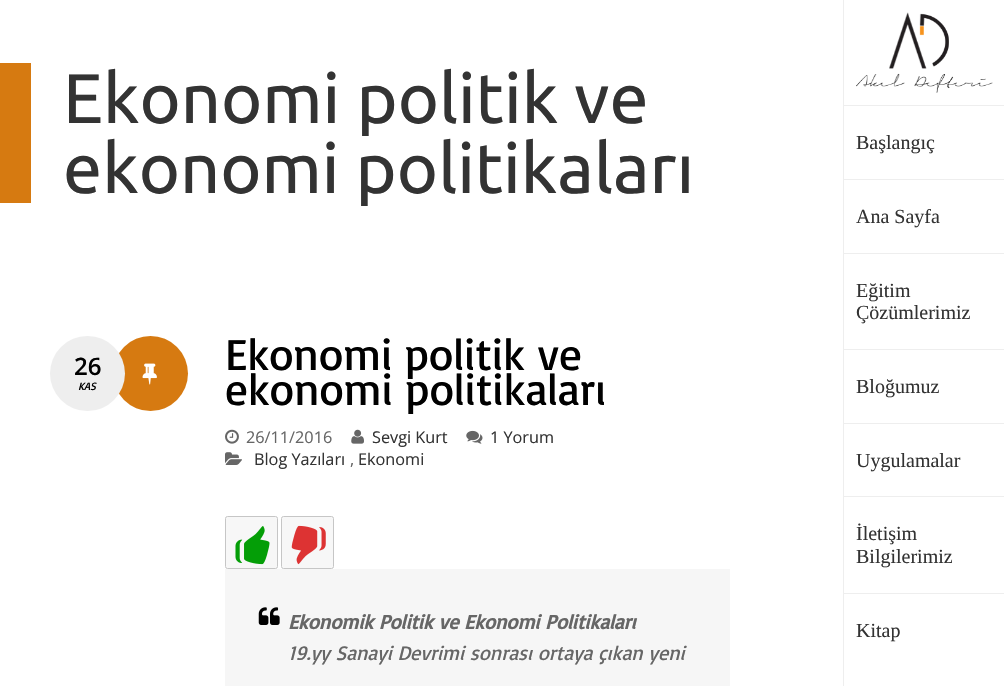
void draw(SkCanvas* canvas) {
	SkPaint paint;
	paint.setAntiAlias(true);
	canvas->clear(0xffffffff);
	paint.setColor(0xffd67a11);
	canvas->drawRect(SkRect::MakeXYWH(0, 63, 31, 140), paint);
	SkFont f1(fontMgr->matchFamilyStyle("Ubuntu", SkFontStyle::Normal()), 70);
	f1.setSubpixel(true);
	paint.setColor(0xff333333);
	canvas->drawString("Ekonomi politik ve", 63, 123, f1, paint);
	canvas->drawString("ekonomi politikaları", 63, 193, f1, paint);
	paint.setColor(0xffd67a11);
	canvas->drawCircle(150.5, 373.5, 37.5, paint);
	paint.setColor(0xffeeeeee);
	canvas->drawCircle(87.5, 373.5, 37.5, paint);
	SkFont f2(fontMgr->matchFamilyStyle("Open Sans", SkFontStyle(600, SkFontStyle::kNormal_Width, SkFontStyle::kUpright_Slant)), 24);
	f2.setSubpixel(true);
	paint.setColor(0xff000000);
	canvas->drawString("26", 74, 375, f2, paint);
	SkFont f3(fontMgr->matchFamilyStyle("Basic", SkFontStyle::Italic()), 11);
	f3.setSubpixel(true);
	canvas->drawString("KAS", 78, 390, f3, paint);
	canvas->drawImageRect(SkImages::DeferredFromEncodedData(SkData::MakeFromFileName("img1.png")), SkRect::MakeXYWH(142, 363, 15, 22), SkSamplingOptions());
	SkFont f4(fontMgr->matchFamilyStyle("Basic", SkFontStyle::Normal()), 45);
	f4.setSubpixel(true);
	canvas->drawString("Ekonomi politik ve", 225, 370, f4, paint);
	canvas->drawString("ekonomi politikaları", 225, 405, f4, paint);
	canvas->drawImageRect(SkImages::DeferredFromEncodedData(SkData::MakeFromFileName("img2.png")), SkRect::MakeXYWH(225, 429, 14, 15), SkSamplingOptions());
	SkFont f5(fontMgr->matchFamilyStyle("Open Sans", SkFontStyle::Normal()), 16.25);
	f5.setSubpixel(true);
	paint.setColor(0xff666666);
	canvas->drawString("26/11/2016", 246, 443, f5, paint);
	canvas->drawImageRect(SkImages::DeferredFromEncodedData(SkData::MakeFromFileName("img3.png")), SkRect::MakeXYWH(351, 429, 13, 15), SkSamplingOptions());
	paint.setColor(0xff333333);
	canvas->drawString("Sevgi Kurt", 372, 443, f5, paint);
	canvas->drawImageRect(SkImages::DeferredFromEncodedData(SkData::MakeFromFileName("img4.png")), SkRect::MakeXYWH(466, 430, 17, 14), SkSamplingOptions());
	canvas->drawString("1 Yorum", 490, 443, f5, paint);
	canvas->drawImageRect(SkImages::DeferredFromEncodedData(SkData::MakeFromFileName("img5.png")), SkRect::MakeXYWH(225, 452, 17, 13), SkSamplingOptions());
	canvas->drawString("Blog Yazıları", 254, 465, f5, paint);
	paint.setColor(0xff666666);
	canvas->drawString(",", 350, 465, f5, paint);
	paint.setColor(0xff333333);
	canvas->drawString("Ekonomi", 358, 465, f5, paint);
	paint.setColor(0xfff7f7f7);
	canvas->drawRoundRect(SkRect::MakeXYWH(225.5, 516.5, 52, 52), 2, 2, paint);
	paint.setStroke(true);
	paint.setStrokeWidth(1);
	paint.setColor(0xffc6c6c6);
	canvas->drawRoundRect(SkRect::MakeXYWH(225.5, 516.5, 52, 52), 2, 2, paint);
	canvas->drawImageRect(SkImages::DeferredFromEncodedData(SkData::MakeFromFileName("img6.png")), SkRect::MakeXYWH(235, 526, 35, 39), SkSamplingOptions());
	paint.setStroke(false);
	paint.setColor(0xfff7f7f7);
	canvas->drawRoundRect(SkRect::MakeXYWH(281.5, 516.5, 52, 52), 2, 2, paint);
	paint.setStroke(true);
	paint.setColor(0xffc6c6c6);
	canvas->drawRoundRect(SkRect::MakeXYWH(281.5, 516.5, 52, 52), 2, 2, paint);
	canvas->drawImageRect(SkImages::DeferredFromEncodedData(SkData::MakeFromFileName("img7.png")), SkRect::MakeXYWH(291, 525, 35, 40), SkSamplingOptions());
	paint.setStroke(false);
	paint.setColor(0xfff6f6f6);
	canvas->drawRect(SkRect::MakeXYWH(225, 569, 505, 117), paint);
	canvas->drawImageRect(SkImages::DeferredFromEncodedData(SkData::MakeFromFileName("img8.png")), SkRect::MakeXYWH(258, 607, 22, 18), SkSamplingOptions());
	SkFont f6(fontMgr->matchFamilyStyle("Basic", SkFontStyle::BoldItalic()), 20.25);
	f6.setSubpixel(true);
	paint.setColor(0xff666666);
	canvas->drawString("Ekonomik Politik ve Ekonomi Politikaları", 288, 629, f6, paint);
	SkFont f7(fontMgr->matchFamilyStyle("Basic", SkFontStyle::Italic()), 20.25);
	f7.setSubpixel(true);
	canvas->drawString("19.yy Sanayi Devrimi sonrası ortaya çıkan yeni", 288, 660, f7, paint);
	paint.setColor(0xffeeeeee);
	canvas->drawRect(SkRect::MakeXYWH(843, 0, 1, 686), paint);
	canvas->drawImageRect(SkImages::DeferredFromEncodedData(SkData::MakeFromFileName("img9.png")), SkRect::MakeXYWH(856, 12, 137, 81), SkSamplingOptions());
	canvas->drawRect(SkRect::MakeXYWH(844, 105, 160, 1), paint);
	SkFont f8(fontMgr->matchFamilyStyle("Liberation Serif", SkFontStyle::Normal()), 20);
	f8.setSubpixel(true);
	paint.setColor(0xff333333);
	canvas->drawString("Başlangıç", 856, 149, f8, paint);
	paint.setColor(0xffeeeeee);
	canvas->drawRect(SkRect::MakeXYWH(844, 179, 160, 1), paint);
	paint.setColor(0xff333333);
	canvas->drawString("Ana Sayfa", 856, 223, f8, paint);
	paint.setColor(0xffeeeeee);
	canvas->drawRect(SkRect::MakeXYWH(844, 253, 160, 1), paint);
	paint.setColor(0xff333333);
	canvas->drawString("Eğitim", 856, 297, f8, paint);
	canvas->drawString("Çözümlerimiz", 856, 319, f8, paint);
	paint.setColor(0xffeeeeee);
	canvas->drawRect(SkRect::MakeXYWH(844, 349, 160, 1), paint);
	paint.setColor(0xff333333);
	canvas->drawString("Bloğumuz", 856, 393, f8, paint);
	paint.setColor(0xffeeeeee);
	canvas->drawRect(SkRect::MakeXYWH(844, 423, 160, 1), paint);
	paint.setColor(0xff333333);
	canvas->drawString("Uygulamalar", 856, 467, f8, paint);
	paint.setColor(0xffeeeeee);
	canvas->drawRect(SkRect::MakeXYWH(844, 496, 160, 1), paint);
	paint.setColor(0xff333333);
	canvas->drawString("İletişim", 856, 540, f8, paint);
	canvas->drawString("Bilgilerimiz", 856, 563, f8, paint);
	paint.setColor(0xffeeeeee);
	canvas->drawRect(SkRect::MakeXYWH(844, 593, 160, 1), paint);
	paint.setColor(0xff333333);
	canvas->drawString("Kitap", 856, 637, f8, paint);
}
